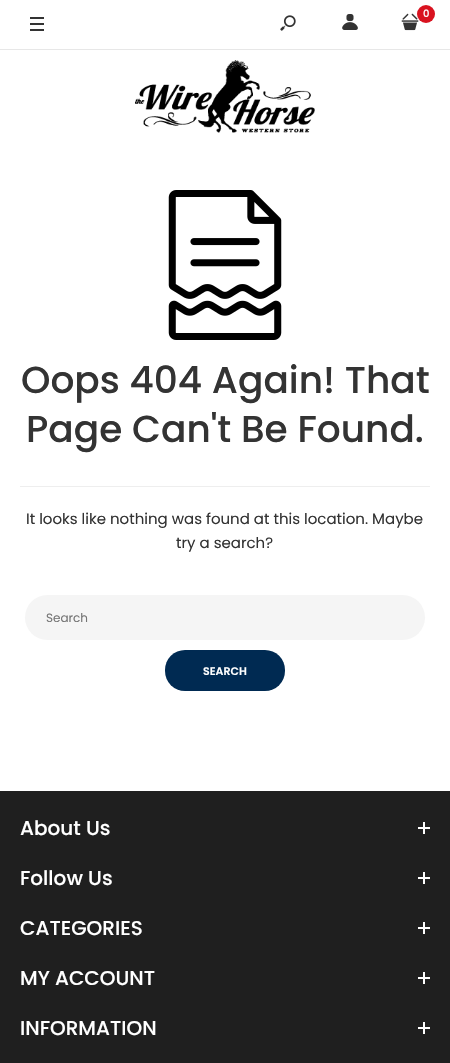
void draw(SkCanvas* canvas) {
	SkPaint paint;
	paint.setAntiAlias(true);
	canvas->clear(0xffffffff);
	paint.setColor(0xffe7e7e7);
	canvas->drawRect(SkRect::MakeXYWH(0, 49, 450, 1), paint);
	canvas->drawImageRect(SkImages::DeferredFromEncodedData(SkData::MakeFromFileName("img1.png")), SkRect::MakeXYWH(401, 13, 18, 18), SkSamplingOptions());
	paint.setColor(0xffd9121f);
	canvas->drawCircle(426, 14, 9, paint);
	SkFont f1(fontMgr->matchFamilyStyle("Poppins", SkFontStyle(500, SkFontStyle::kNormal_Width, SkFontStyle::kUpright_Slant)), 10);
	f1.setSubpixel(true);
	paint.setColor(0xffffffff);
	canvas->drawString("0", 423, 17, f1, paint);
	paint.setColor(0xff333333);
	canvas->drawRect(SkRect::MakeXYWH(30, 23, 14, 2), paint);
	canvas->drawRect(SkRect::MakeXYWH(30, 17, 14, 2), paint);
	canvas->drawRect(SkRect::MakeXYWH(30, 29, 14, 2), paint);
	canvas->drawImageRect(SkImages::DeferredFromEncodedData(SkData::MakeFromFileName("img2.png")), SkRect::MakeXYWH(280, 15, 16, 16), SkSamplingOptions());
	canvas->drawImageRect(SkImages::DeferredFromEncodedData(SkData::MakeFromFileName("img3.png")), SkRect::MakeXYWH(342, 14, 16, 16), SkSamplingOptions());
	canvas->drawImageRect(SkImages::DeferredFromEncodedData(SkData::MakeFromFileName("img4.png")), SkRect::MakeXYWH(135, 60, 180, 73), SkSamplingOptions());
	paint.setColor(0xffeeeeee);
	canvas->drawRect(SkRect::MakeXYWH(20, 486, 410, 1), paint);
	canvas->drawImageRect(SkImages::DeferredFromEncodedData(SkData::MakeFromFileName("img5.png")), SkRect::MakeXYWH(168, 190, 114, 150), SkSamplingOptions());
	SkFont f2(fontMgr->matchFamilyStyle("Poppins", SkFontStyle(500, SkFontStyle::kNormal_Width, SkFontStyle::kUpright_Slant)), 37.5);
	f2.setSubpixel(true);
	paint.setColor(0xff333333);
	canvas->drawString("Oops 404 Again! That", 21, 393, f2, paint);
	canvas->drawString("Page Can't Be Found.", 26, 442, f2, paint);
	SkFont f3(fontMgr->matchFamilyStyle("Poppins", SkFontStyle::Normal()), 15);
	f3.setSubpixel(true);
	canvas->drawString("It looks like nothing was found at this location. Maybe", 26, 524, f3, paint);
	canvas->drawString("try a search?", 176, 548, f3, paint);
	paint.setColor(0xfff5f5f5);
	canvas->drawRoundRect(SkRect::MakeXYWH(25, 595, 400, 45), 22.5, 22.5, paint);
	SkFont f4(fontMgr->matchFamilyStyle("Poppins", SkFontStyle::Normal()), 12);
	f4.setSubpixel(true);
	paint.setColor(0xff757575);
	canvas->drawString("Search", 46, 622, f4, paint);
	paint.setColor(0xff002a52);
	canvas->drawRoundRect(SkRect::MakeXYWH(165, 650, 120, 41), 20, 20, paint);
	SkFont f5(fontMgr->matchFamilyStyle("Poppins", SkFontStyle(600, SkFontStyle::kNormal_Width, SkFontStyle::kUpright_Slant)), 11);
	f5.setSubpixel(true);
	paint.setColor(0xffffffff);
	canvas->drawString("SEARCH", 203, 675, f5, paint);
	paint.setColor(0xff1f1f1f);
	canvas->drawRect(SkRect::MakeXYWH(0, 791, 450, 272), paint);
	SkFont f6(fontMgr->matchFamilyStyle("Poppins", SkFontStyle(500, SkFontStyle::kNormal_Width, SkFontStyle::kUpright_Slant)), 20);
	f6.setSubpixel(true);
	paint.setColor(0xffffffff);
	canvas->drawString("About Us", 20, 835, f6, paint);
	canvas->drawImageRect(SkImages::DeferredFromEncodedData(SkData::MakeFromFileName("img6.png")), SkRect::MakeXYWH(418, 822, 12, 12), SkSamplingOptions());
	canvas->drawString("Follow Us", 20, 885, f6, paint);
	canvas->drawImageRect(SkImages::DeferredFromEncodedData(SkData::MakeFromFileName("img6.png")), SkRect::MakeXYWH(418, 872, 12, 12), SkSamplingOptions());
	canvas->drawString("CATEGORIES", 20, 935, f6, paint);
	canvas->drawImageRect(SkImages::DeferredFromEncodedData(SkData::MakeFromFileName("img6.png")), SkRect::MakeXYWH(418, 922, 12, 12), SkSamplingOptions());
	canvas->drawString("MY ACCOUNT", 20, 985, f6, paint);
	canvas->drawImageRect(SkImages::DeferredFromEncodedData(SkData::MakeFromFileName("img6.png")), SkRect::MakeXYWH(418, 972, 12, 12), SkSamplingOptions());
	canvas->drawString("INFORMATION", 20, 1035, f6, paint);
	canvas->drawImageRect(SkImages::DeferredFromEncodedData(SkData::MakeFromFileName("img6.png")), SkRect::MakeXYWH(418, 1022, 12, 12), SkSamplingOptions());
}
